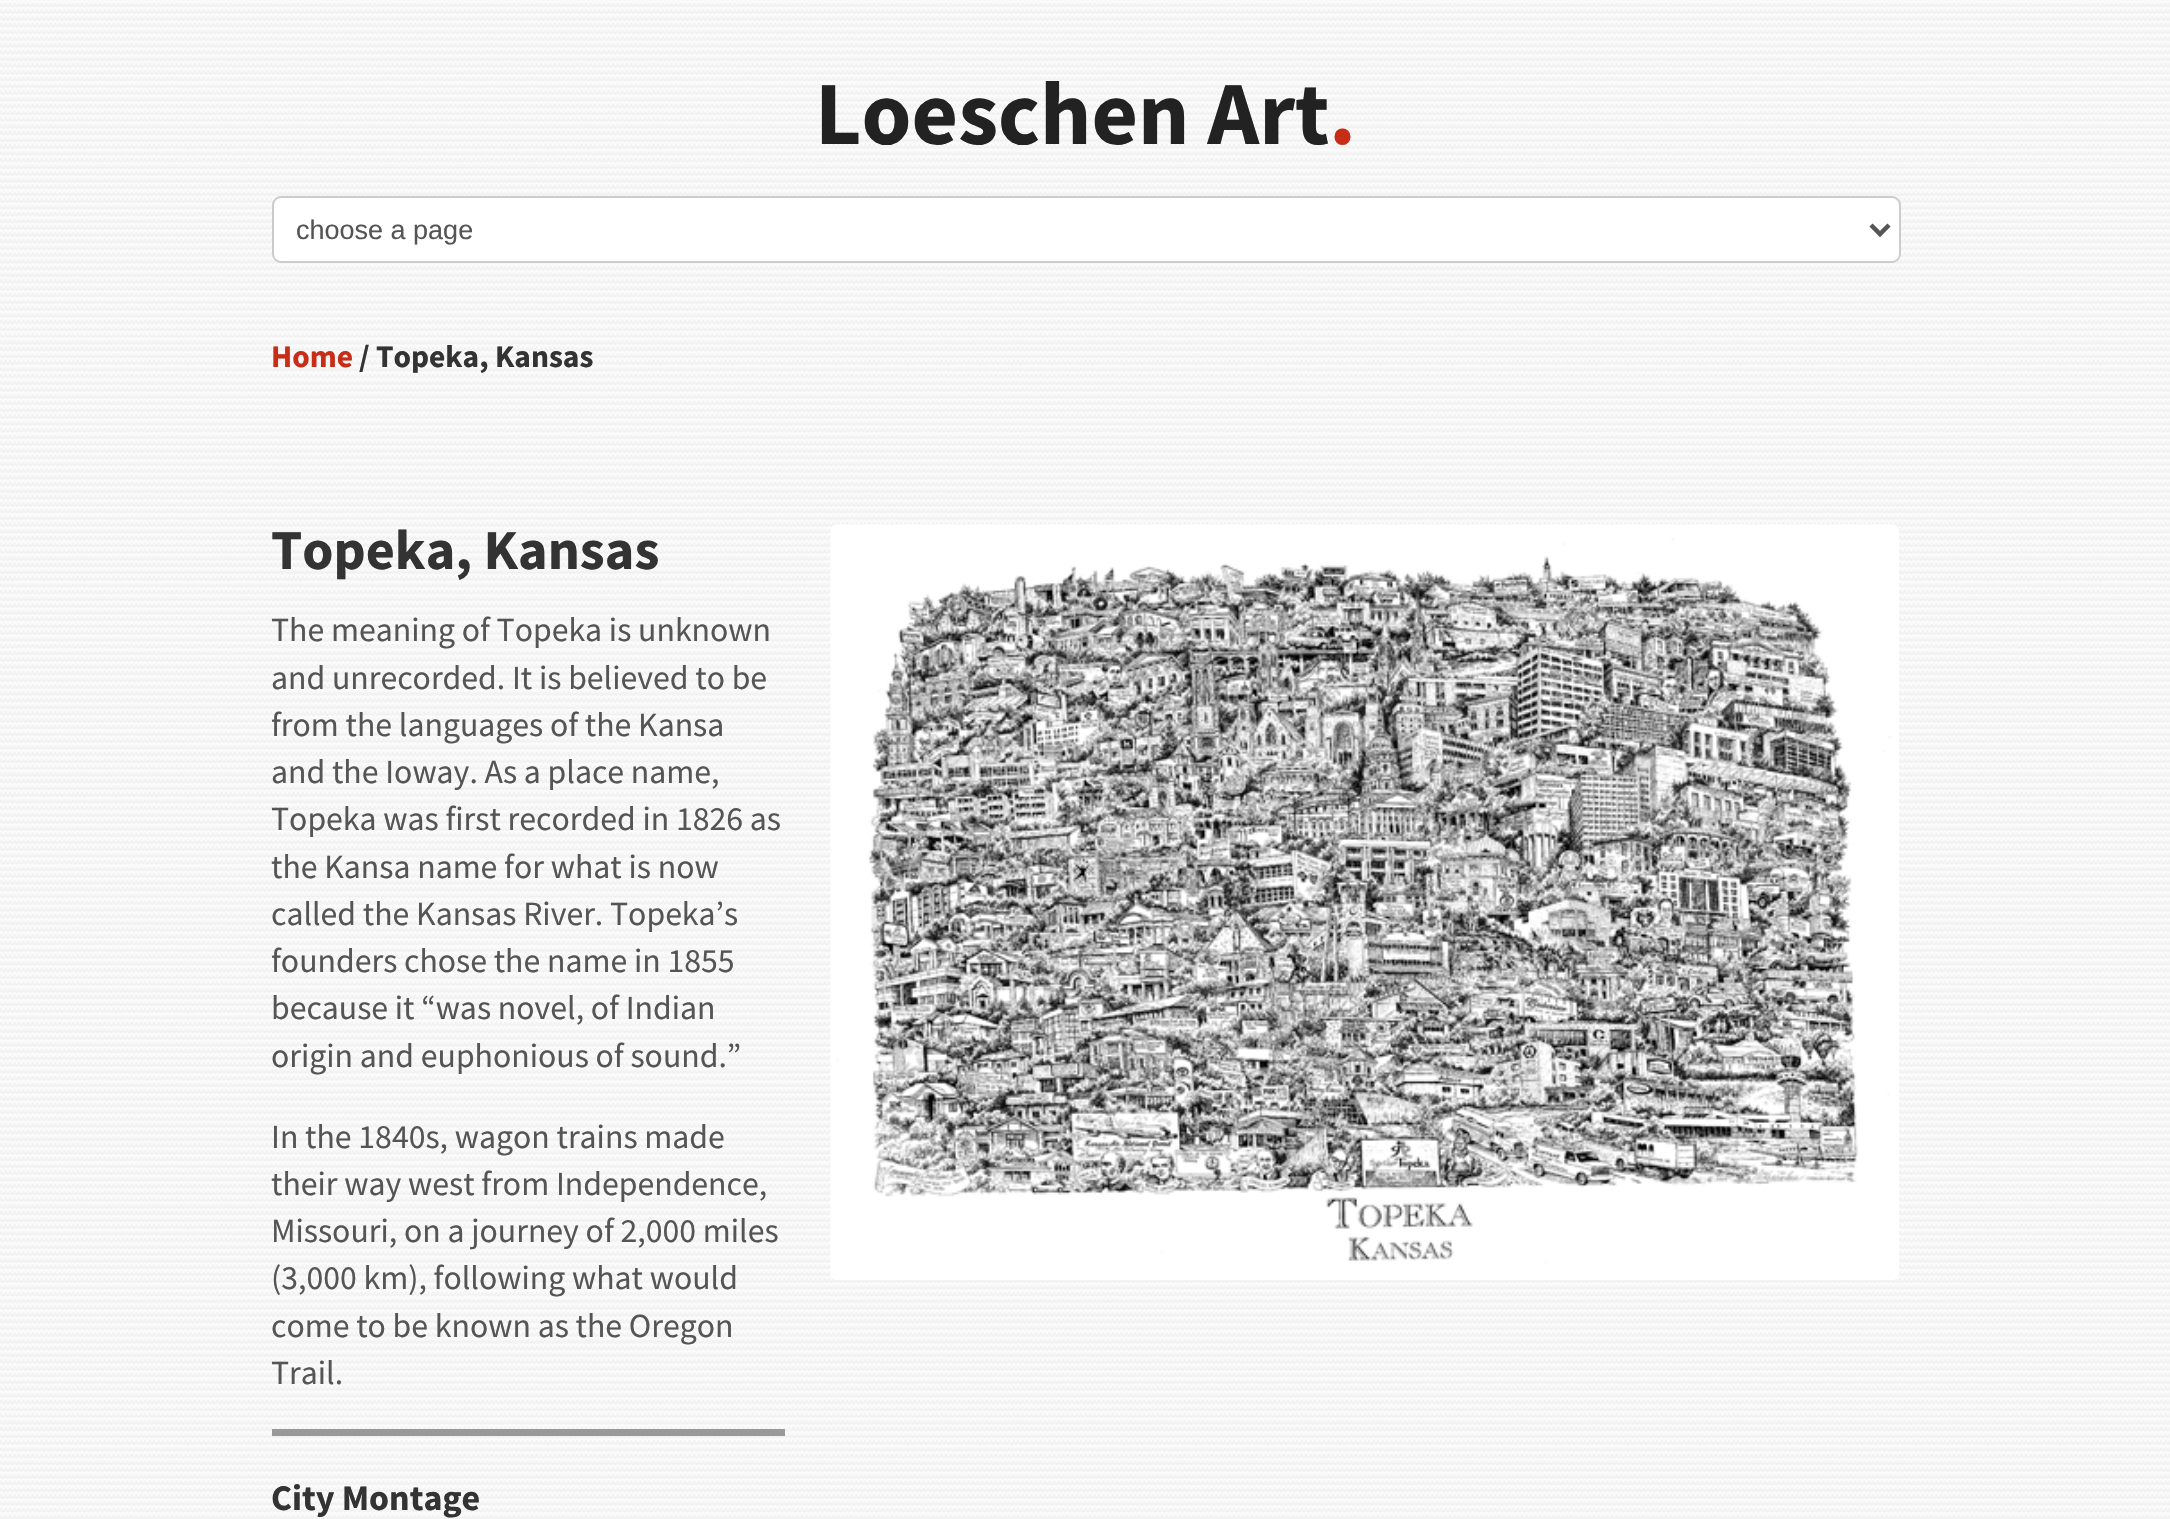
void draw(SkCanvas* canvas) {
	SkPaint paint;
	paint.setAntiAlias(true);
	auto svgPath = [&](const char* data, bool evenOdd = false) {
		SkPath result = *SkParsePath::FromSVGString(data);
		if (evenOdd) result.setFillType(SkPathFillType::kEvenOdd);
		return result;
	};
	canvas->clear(0xffffffff);
	canvas->drawImageRect(SkImages::DeferredFromEncodedData(SkData::MakeFromFileName("img1.png")), SkRect::MakeXYWH(0, 0, 2170, 1519), SkSamplingOptions());
	SkFont f1(fontMgr->matchFamilyStyle("Source Sans Pro", SkFontStyle::Bold()), 90);
	f1.setSubpixel(true);
	paint.setColor(0xff222222);
	canvas->drawString("Loeschen Art", 815, 144, f1, paint);
	paint.setColor(0xffc82d18);
	canvas->drawString(".", 1329, 144, f1, paint);
	paint.setColor(0xffffffff);
	canvas->drawRoundRect(SkRect::MakeXYWH(273, 197, 1627, 65), 8, 8, paint);
	paint.setStroke(true);
	paint.setStrokeWidth(2);
	paint.setColor(0xffcccccc);
	canvas->drawRoundRect(SkRect::MakeXYWH(273, 197, 1627, 65), 8, 8, paint);
	paint.setStrokeWidth(4.5);
	paint.setColor(0xff555555);
	canvas->drawPath(svgPath("M1871 225L1880 234L1889 225"), paint);
	SkFont f2(fontMgr->matchFamilyStyle("Liberation Sans", SkFontStyle::Normal()), 27);
	f2.setSubpixel(true);
	paint.setStroke(false);
	canvas->drawString("choose a page", 296, 239, f2, paint);
	SkFont f3(fontMgr->matchFamilyStyle("Source Sans Pro", SkFontStyle::Bold()), 31.5);
	f3.setSubpixel(true);
	paint.setColor(0xffc82d18);
	canvas->drawString("Home", 271, 367, f3, paint);
	paint.setColor(0xff333333);
	canvas->drawString("/ Topeka, Kansas", 359, 367, f3, paint);
	SkFont f4(fontMgr->matchFamilyStyle("Source Sans Pro", SkFontStyle::Bold()), 56.25);
	f4.setSubpixel(true);
	canvas->drawString("Topeka, Kansas", 271, 569, f4, paint);
	SkFont f5(fontMgr->matchFamilyStyle("Source Sans Pro", SkFontStyle::Normal()), 33.75);
	f5.setSubpixel(true);
	paint.setColor(0xff555555);
	canvas->drawString("The meaning of Topeka is unknown", 271, 641, f5, paint);
	canvas->drawString("and unrecorded. It is believed to be", 271, 689, f5, paint);
	canvas->drawString("from the languages of the Kansa", 271, 736, f5, paint);
	canvas->drawString("and the Ioway. As a place name,", 271, 783, f5, paint);
	canvas->drawString("Topeka was first recorded in 1826 as", 271, 830, f5, paint);
	canvas->drawString("the Kansa name for what is now", 271, 878, f5, paint);
	canvas->drawString("called the Kansas River. Topeka’s", 271, 925, f5, paint);
	canvas->drawString("founders chose the name in 1855", 271, 972, f5, paint);
	canvas->drawString("because it “was novel, of Indian", 271, 1019, f5, paint);
	canvas->drawString("origin and euphonious of sound.”", 271, 1067, f5, paint);
	canvas->drawString("In the 1840s, wagon trains made", 271, 1148, f5, paint);
	canvas->drawString("their way west from Independence,", 271, 1195, f5, paint);
	canvas->drawString("Missouri, on a journey of 2,000 miles", 271, 1242, f5, paint);
	canvas->drawString("(3,000 km), following what would", 271, 1289, f5, paint);
	canvas->drawString("come to be known as the Oregon", 271, 1337, f5, paint);
	canvas->drawString("Trail.", 271, 1384, f5, paint);
	paint.setColor(0xff999999);
	canvas->drawRect(SkRect::MakeXYWH(272, 1429, 513, 7), paint);
	SkFont f6(fontMgr->matchFamilyStyle("Source Sans Pro", SkFontStyle::Bold()), 36);
	f6.setSubpixel(true);
	paint.setColor(0xff333333);
	canvas->drawString("City Montage", 271, 1510, f6, paint);
	canvas->drawImageRect(SkImages::DeferredFromEncodedData(SkData::MakeFromFileName("img2.png")), SkRect::MakeXYWH(830, 524, 1069, 756), SkSamplingOptions());
}
